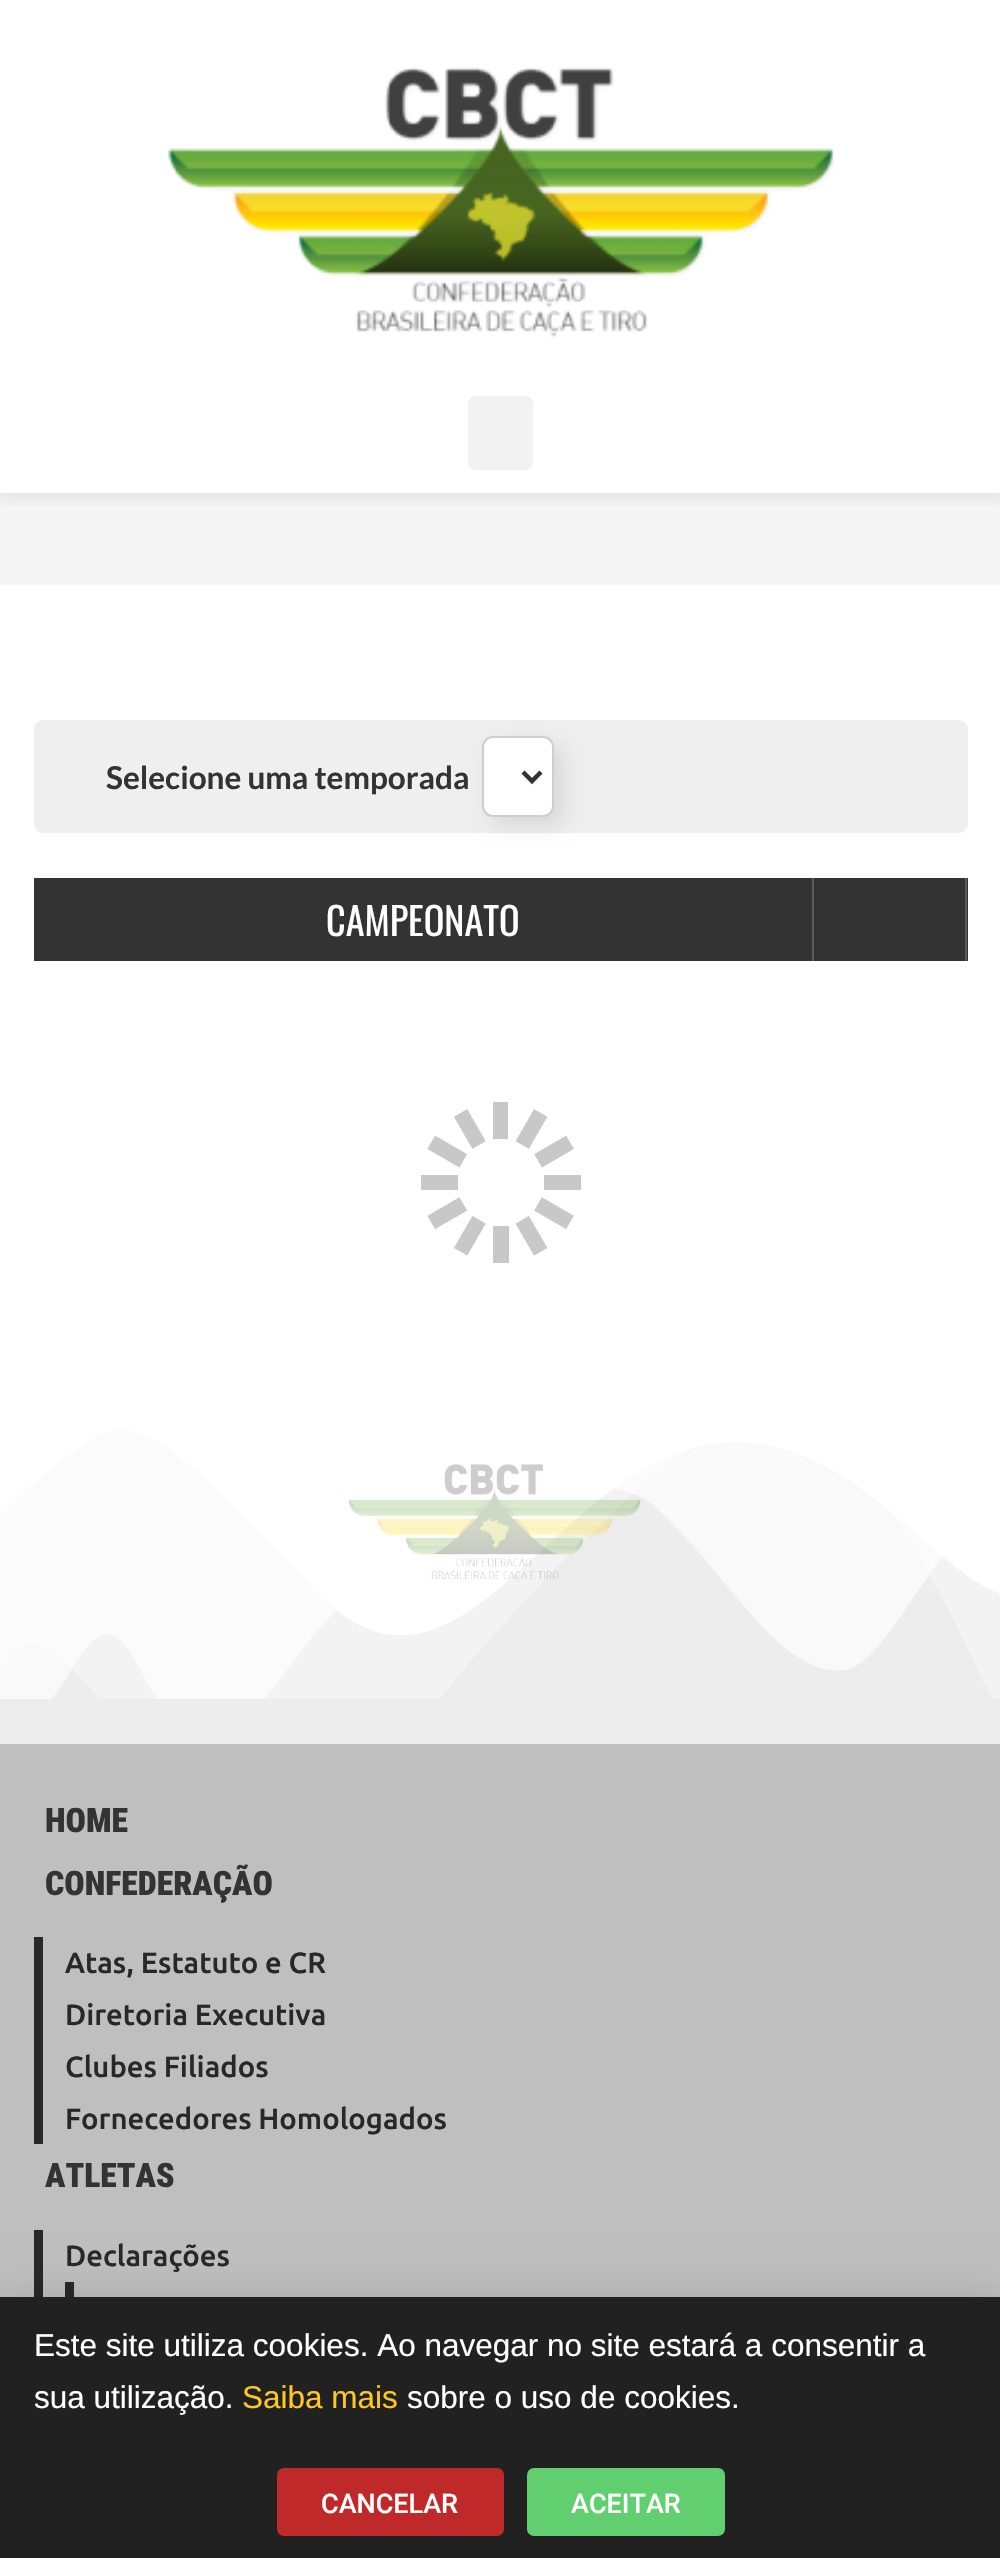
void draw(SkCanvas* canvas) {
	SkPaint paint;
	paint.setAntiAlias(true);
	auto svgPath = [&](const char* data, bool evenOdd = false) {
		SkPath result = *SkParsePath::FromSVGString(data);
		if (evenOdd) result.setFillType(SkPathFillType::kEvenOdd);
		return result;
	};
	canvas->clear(0xffffffff);
	paint.setColor(0xfff5f5f5);
	canvas->drawRect(SkRect::MakeXYWH(0, 493, 1000, 92), paint);
	paint.setColor(0x0f000000);
	paint.setMaskFilter(SkMaskFilter::MakeBlur(kNormal_SkBlurStyle, 5.5));
	canvas->drawRect(SkRect::MakeXYWH(-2, 2, 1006, 498), paint);
	paint.setMaskFilter(nullptr);
	paint.setColor(0xffffffff);
	canvas->drawRect(SkRect::MakeXYWH(0, 0, 1000, 493), paint);
	canvas->drawImageRect(SkImages::DeferredFromEncodedData(SkData::MakeFromFileName("img1.png")), SkRect::MakeXYWH(168, 67, 667, 271), SkSamplingOptions());
	paint.setColor(0xfff2f2f2);
	canvas->drawRoundRect(SkRect::MakeXYWH(468, 396, 65, 74), 7, 7, paint);
	paint.setColor(0xffefefef);
	canvas->drawRoundRect(SkRect::MakeXYWH(34, 720, 934, 113), 9, 9, paint);
	SkFont f1(fontMgr->matchFamilyStyle("Lato", SkFontStyle::Bold()), 31.5);
	f1.setSubpixel(true);
	paint.setColor(0xff333333);
	canvas->drawString("Selecione uma temporada", 106, 789, f1, paint);
	paint.setColor(0x1a000000);
	paint.setMaskFilter(SkMaskFilter::MakeBlur(kNormal_SkBlurStyle, 11));
	canvas->drawRoundRect(SkRect::MakeXYWH(491, 745, 72, 81), 11, 11, paint);
	paint.setMaskFilter(nullptr);
	paint.setColor(0xffffffff);
	canvas->drawRoundRect(SkRect::MakeXYWH(483, 737, 70, 79), 10, 10, paint);
	paint.setStroke(true);
	paint.setStrokeWidth(2);
	paint.setColor(0xffcecece);
	canvas->drawRoundRect(SkRect::MakeXYWH(483, 737, 70, 79), 10, 10, paint);
	paint.setStrokeWidth(4.5);
	paint.setColor(0xff333333);
	canvas->drawPath(svgPath("M523 772L532 781L541 772"), paint);
	paint.setStroke(false);
	canvas->drawRect(SkRect::MakeXYWH(34, 878, 778, 83), paint);
	SkFont f2(fontMgr->matchFamilyStyle("Oswald", SkFontStyle::Normal()), 38.25);
	f2.setSubpixel(true);
	paint.setColor(0xffffffff);
	canvas->drawString("CAMPEONATO", 326, 936, f2, paint);
	paint.setColor(0xff333333);
	canvas->drawRect(SkRect::MakeXYWH(814, 878, 154, 83), paint);
	paint.setColor(0xff5c5c5c);
	canvas->drawRect(SkRect::MakeXYWH(812, 878, 2, 83), paint);
	canvas->drawRect(SkRect::MakeXYWH(965, 878, 2, 83), paint);
	canvas->drawImageRect(SkImages::DeferredFromEncodedData(SkData::MakeFromFileName("img2.png")), SkRect::MakeXYWH(421, 1102, 160, 161), SkSamplingOptions());
	paint.setColor(0xffededed);
	canvas->drawRect(SkRect::MakeXYWH(0, 1430, 1000, 314), paint);
	canvas->drawImageRect(SkImages::DeferredFromEncodedData(SkData::MakeFromFileName("img3.png")), SkRect::MakeXYWH(0, 1388, 1000, 311), SkSamplingOptions());
	canvas->drawImageRect(SkImages::DeferredFromEncodedData(SkData::MakeFromFileName("img4.png")), SkRect::MakeXYWH(349, 1464, 292, 118), SkSamplingOptions());
	paint.setColor(0xffbfbfbf);
	canvas->drawRect(SkRect::MakeXYWH(0, 1744, 1000, 553), paint);
	SkFont f3(fontMgr->matchFamilyStyle("Roboto Condensed", SkFontStyle(900, SkFontStyle::kNormal_Width, SkFontStyle::kUpright_Slant)), 33.75);
	f3.setSubpixel(true);
	paint.setColor(0xff333333);
	canvas->drawString("HOME", 45, 1832, f3, paint);
	canvas->drawString("CONFEDERAÇÃO", 45, 1895, f3, paint);
	paint.setColor(0xff282828);
	canvas->drawRect(SkRect::MakeXYWH(34, 1937, 9, 207), paint);
	SkFont f4(fontMgr->matchFamilyStyle("Ubuntu", SkFontStyle(500, SkFontStyle::kNormal_Width, SkFontStyle::kUpright_Slant)), 29.25);
	f4.setSubpixel(true);
	canvas->drawString("Atas, Estatuto e CR", 65, 1973, f4, paint);
	canvas->drawString("Diretoria Executiva", 65, 2025, f4, paint);
	canvas->drawString("Clubes Filiados", 65, 2077, f4, paint);
	canvas->drawString("Fornecedores Homologados", 65, 2129, f4, paint);
	paint.setColor(0xff333333);
	canvas->drawString("ATLETAS", 45, 2187, f3, paint);
	paint.setColor(0xff282828);
	canvas->drawRect(SkRect::MakeXYWH(34, 2230, 9, 67), paint);
	canvas->drawString("Declarações", 65, 2266, f4, paint);
	canvas->drawRect(SkRect::MakeXYWH(65, 2282, 9, 15), paint);
	paint.setColor(0x33000000);
	paint.setMaskFilter(SkMaskFilter::MakeBlur(kNormal_SkBlurStyle, 26));
	canvas->drawRect(SkRect::MakeXYWH(-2, 2309, 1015, 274), paint);
	paint.setMaskFilter(nullptr);
	paint.setColor(0xff212121);
	canvas->drawRect(SkRect::MakeXYWH(0, 2297, 1000, 261), paint);
	SkFont f5(fontMgr->matchFamilyStyle("Liberation Sans", SkFontStyle::Normal()), 31.5);
	f5.setSubpixel(true);
	paint.setColor(0xffffffff);
	canvas->drawString("Este site utiliza cookies. Ao navegar no site estará a consentir a", 34, 2356, f5, paint);
	canvas->drawString("sua utilização.", 34, 2408, f5, paint);
	paint.setColor(0xfffec726);
	canvas->drawString("Saiba mais", 242, 2408, f5, paint);
	paint.setColor(0xffffffff);
	canvas->drawString("sobre o uso de cookies.", 407, 2408, f5, paint);
	paint.setColor(0xffbf2929);
	canvas->drawRoundRect(SkRect::MakeXYWH(277, 2468, 227, 68), 7, 7, paint);
	SkFont f6(fontMgr->matchFamilyStyle("Roboto", SkFontStyle(500, SkFontStyle::kNormal_Width, SkFontStyle::kUpright_Slant)), 27);
	f6.setSubpixel(true);
	paint.setColor(0xffffffff);
	canvas->drawString("CANCELAR", 321, 2513, f6, paint);
	paint.setColor(0xff61ce70);
	canvas->drawRoundRect(SkRect::MakeXYWH(527, 2468, 198, 68), 7, 7, paint);
	paint.setColor(0xffffffff);
	canvas->drawString("ACEITAR", 571, 2513, f6, paint);
}
